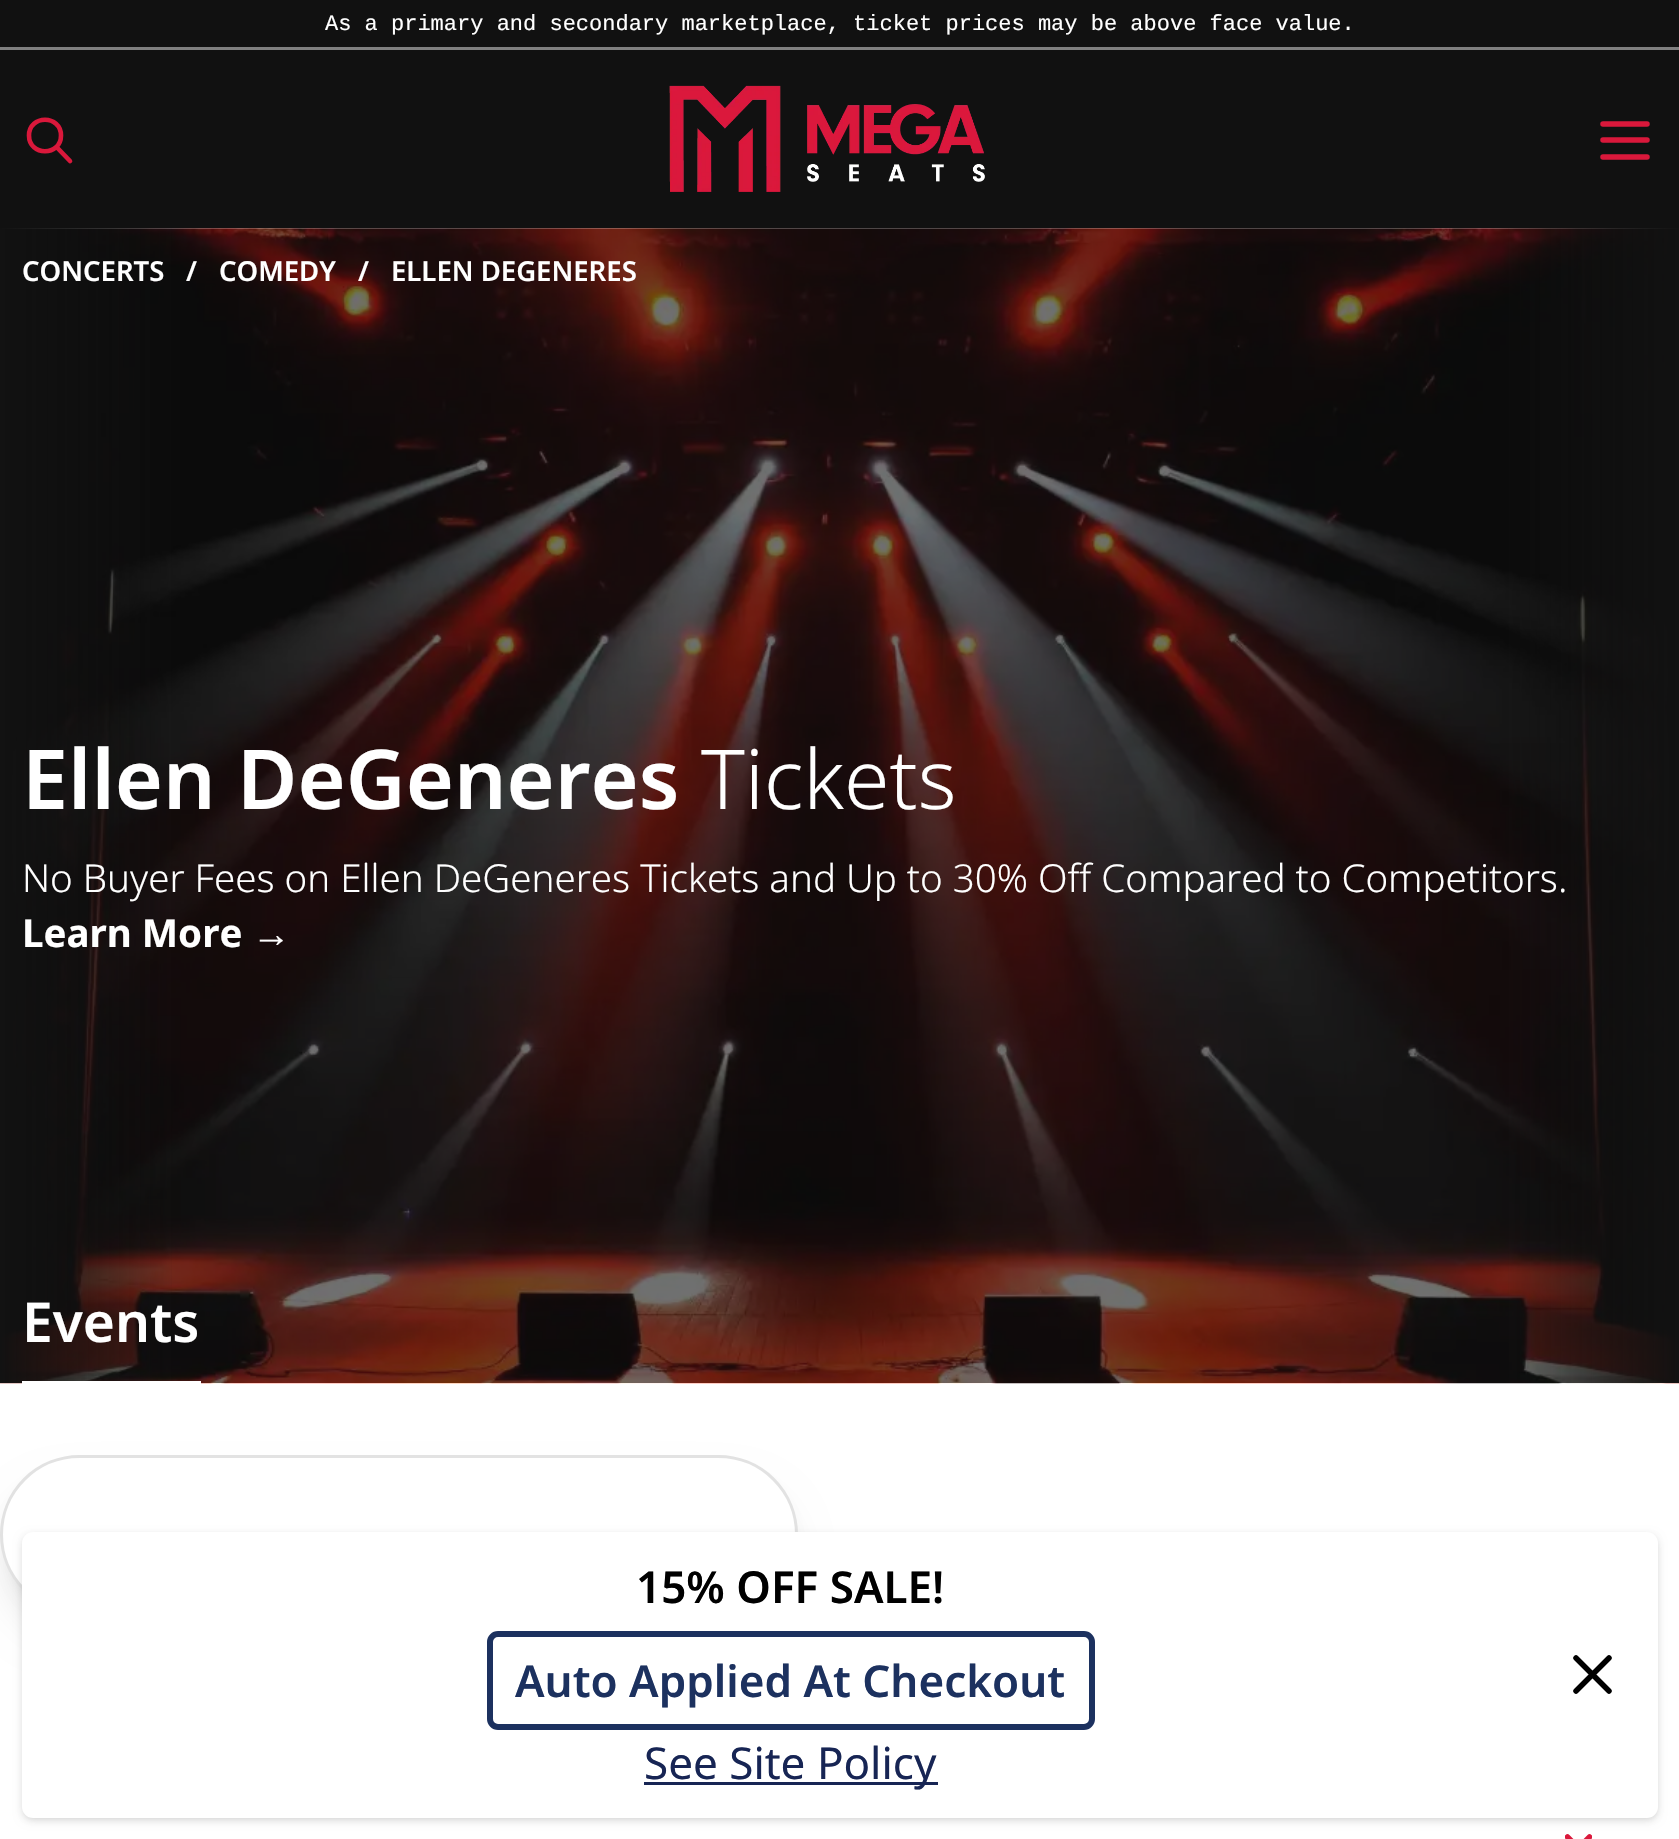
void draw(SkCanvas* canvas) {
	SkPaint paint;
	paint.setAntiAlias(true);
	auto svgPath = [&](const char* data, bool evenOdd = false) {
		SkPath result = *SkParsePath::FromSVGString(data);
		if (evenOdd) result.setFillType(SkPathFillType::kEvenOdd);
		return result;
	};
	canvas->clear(0xffffffff);
	paint.setColor(0xff111111);
	canvas->drawRect(SkRect::MakeXYWH(0, 0, 1679, 47), paint);
	paint.setColor(0xff808080);
	canvas->drawRect(SkRect::MakeXYWH(0, 47, 1679, 3), paint);
	SkFont f1(fontMgr->matchFamilyStyle("Liberation Mono", SkFontStyle::Normal()), 22);
	f1.setSubpixel(true);
	paint.setColor(0xffffffff);
	canvas->drawString("As a primary and secondary marketplace, ticket prices may be above face value.", 325, 30, f1, paint);
	paint.setColor(0xff111111);
	canvas->drawRect(SkRect::MakeXYWH(0, 50, 1679, 178), paint);
	paint.setStroke(true);
	paint.setStrokeWidth(4.6);
	paint.setStrokeCap(SkPaint::kRound_Cap);
	paint.setStrokeJoin(SkPaint::kRound_Join);
	paint.setColor(0xffda183b);
	canvas->drawPath(svgPath("M70 161L56.5 147M61 135.5C61 156.5 29 156.5 29 135.5C29 114.5 61 114.5 61 135.5Z"), paint);
	canvas->drawImageRect(SkImages::DeferredFromEncodedData(SkData::MakeFromFileName("img1.png")), SkRect::MakeXYWH(669, 85, 316, 107), SkSamplingOptions());
	paint.setStrokeWidth(5.5);
	canvas->drawPath(svgPath("M1603 124H1647M1603 140H1647M1603 157H1647"), paint);
	canvas->drawImageRect(SkImages::DeferredFromEncodedData(SkData::MakeFromFileName("img2.png")), SkRect::MakeXYWH(0, 228, 1679, 1156), SkSamplingOptions());
	paint.setStroke(false);
	{
		const SkColor colors[] = {0xff111111, 0x00111111};
		const float stops[] = {0, 1};
		const SkPoint ends[] = {{0, 806}, {176, 806}};
		paint.setShader(SkGradientShader::MakeLinear(ends, colors, stops, 2, SkTileMode::kClamp));
		paint.setAlpha(255);
	}
	canvas->drawRect(SkRect::MakeXYWH(0, 228, 172, 1155), paint);
	{
		const SkColor colors[] = {0xff111111, 0x00111111};
		const float stops[] = {0, 1};
		const SkPoint ends[] = {{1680, 806}, {1504, 806}};
		paint.setShader(SkGradientShader::MakeLinear(ends, colors, stops, 2, SkTileMode::kClamp));
		paint.setAlpha(255);
	}
	canvas->drawRect(SkRect::MakeXYWH(1508, 228, 171, 1155), paint);
	SkFont f2(fontMgr->matchFamilyStyle("Noto Sans", SkFontStyle(600, SkFontStyle::kNormal_Width, SkFontStyle::kUpright_Slant)), 27.5);
	f2.setSubpixel(true);
	paint.setShader(nullptr);
	paint.setColor(0xffffffff);
	canvas->drawString("CONCERTS", 22, 281, f2, paint);
	canvas->drawString("/", 186, 281, f2, paint);
	canvas->drawString("COMEDY", 219, 281, f2, paint);
	canvas->drawString("/", 358, 281, f2, paint);
	canvas->drawString("ELLEN DEGENERES", 391, 281, f2, paint);
	SkFont f3(fontMgr->matchFamilyStyle("Noto Sans", SkFontStyle(600, SkFontStyle::kNormal_Width, SkFontStyle::kUpright_Slant)), 82.5);
	f3.setSubpixel(true);
	canvas->drawString("Ellen DeGeneres", 22, 809, f3, paint);
	SkFont f4(fontMgr->matchFamilyStyle("Noto Sans", SkFontStyle(300, SkFontStyle::kNormal_Width, SkFontStyle::kUpright_Slant)), 82.5);
	f4.setSubpixel(true);
	canvas->drawString("Tickets", 701, 809, f4, paint);
	SkFont f5(fontMgr->matchFamilyStyle("Noto Sans", SkFontStyle(300, SkFontStyle::kNormal_Width, SkFontStyle::kUpright_Slant)), 38.5);
	f5.setSubpixel(true);
	canvas->drawString("No Buyer Fees on Ellen DeGeneres Tickets and Up to 30% Off Compared to Competitors.", 22, 892, f5, paint);
	SkFont f6(fontMgr->matchFamilyStyle("Noto Sans", SkFontStyle::Bold()), 38.5);
	f6.setSubpixel(true);
	canvas->drawString("Learn More", 22, 947, f6, paint);
	SkFont f7(fontMgr->matchFamilyStyle("Liberation Sans", SkFontStyle::Bold()), 38.5);
	f7.setSubpixel(true);
	canvas->drawString("→", 252, 947, f7, paint);
	SkFont f8(fontMgr->matchFamilyStyle("Noto Sans", SkFontStyle(600, SkFontStyle::kNormal_Width, SkFontStyle::kUpright_Slant)), 55);
	f8.setSubpixel(true);
	canvas->drawString("Events", 22, 1342, f8, paint);
	canvas->drawRect(SkRect::MakeXYWH(22, 1381, 179, 3), paint);
	paint.setColor(0x1a000000);
	paint.setMaskFilter(SkMaskFilter::MakeBlur(kNormal_SkBlurStyle, 8));
	canvas->drawRoundRect(SkRect::MakeXYWH(11, 1477, 776, 137), 68.5, 68.5, paint);
	paint.setMaskFilter(nullptr);
	paint.setMaskFilter(SkMaskFilter::MakeBlur(kNormal_SkBlurStyle, 20.5));
	canvas->drawRoundRect(SkRect::MakeXYWH(8, 1491, 781, 143), 71.5, 71.5, paint);
	paint.setMaskFilter(nullptr);
	paint.setColor(0xffffffff);
	canvas->drawRoundRect(SkRect::MakeXYWH(1.5, 1456.5, 795, 156), 78, 78, paint);
	paint.setStroke(true);
	paint.setStrokeWidth(3);
	paint.setStrokeCap(SkPaint::kButt_Cap);
	paint.setStrokeJoin(SkPaint::kMiter_Join);
	paint.setColor(0xffe2e2e2);
	canvas->drawRoundRect(SkRect::MakeXYWH(1.5, 1456.5, 795, 156), 78, 78, paint);
	paint.setStroke(false);
	paint.setColor(0x1a000000);
	paint.setMaskFilter(SkMaskFilter::MakeBlur(kNormal_SkBlurStyle, 3));
	canvas->drawRoundRect(SkRect::MakeXYWH(25, 1537, 1631, 281), 8, 8, paint);
	paint.setMaskFilter(nullptr);
	paint.setMaskFilter(SkMaskFilter::MakeBlur(kNormal_SkBlurStyle, 4));
	canvas->drawRoundRect(SkRect::MakeXYWH(22, 1535, 1636, 286), 11, 11, paint);
	paint.setMaskFilter(nullptr);
	paint.setColor(0xffffffff);
	canvas->drawRoundRect(SkRect::MakeXYWH(22, 1532, 1636, 286), 11, 11, paint);
	SkFont f9(fontMgr->matchFamilyStyle("Noto Sans", SkFontStyle(600, SkFontStyle::kNormal_Width, SkFontStyle::kUpright_Slant)), 44);
	f9.setSubpixel(true);
	paint.setColor(0xff000000);
	canvas->drawString("15% OFF SALE!", 636, 1603, f9, paint);
	paint.setStroke(true);
	paint.setStrokeWidth(6);
	paint.setColor(0xff1c315f);
	canvas->drawRoundRect(SkRect::MakeXYWH(490, 1634, 602, 93), 8, 8, paint);
	paint.setStroke(false);
	canvas->drawString("Auto Applied At Checkout", 515, 1697, f9, paint);
	paint.setColor(0xff172554);
	canvas->drawRect(SkRect::MakeXYWH(644, 1782, 294, 3), paint);
	SkFont f10(fontMgr->matchFamilyStyle("Noto Sans", SkFontStyle::Normal()), 44);
	f10.setSubpixel(true);
	canvas->drawString("See Site Policy", 644, 1779, f10, paint);
	paint.setStroke(true);
	paint.setStrokeWidth(5.5);
	paint.setStrokeCap(SkPaint::kRound_Cap);
	paint.setStrokeJoin(SkPaint::kRound_Join);
	paint.setColor(0xff000000);
	canvas->drawPath(svgPath("M1576 1691L1609 1658M1576 1658L1609 1691"), paint);
	canvas->save();
	canvas->clipRect(SkRect::MakeXYWH(1565, 1829, 27, 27));
	paint.setColor(0xffda183b);
	canvas->drawPath(svgPath("M1567.5 1837L1578.5 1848L1589.5 1837"), paint);
	canvas->restore();
}
